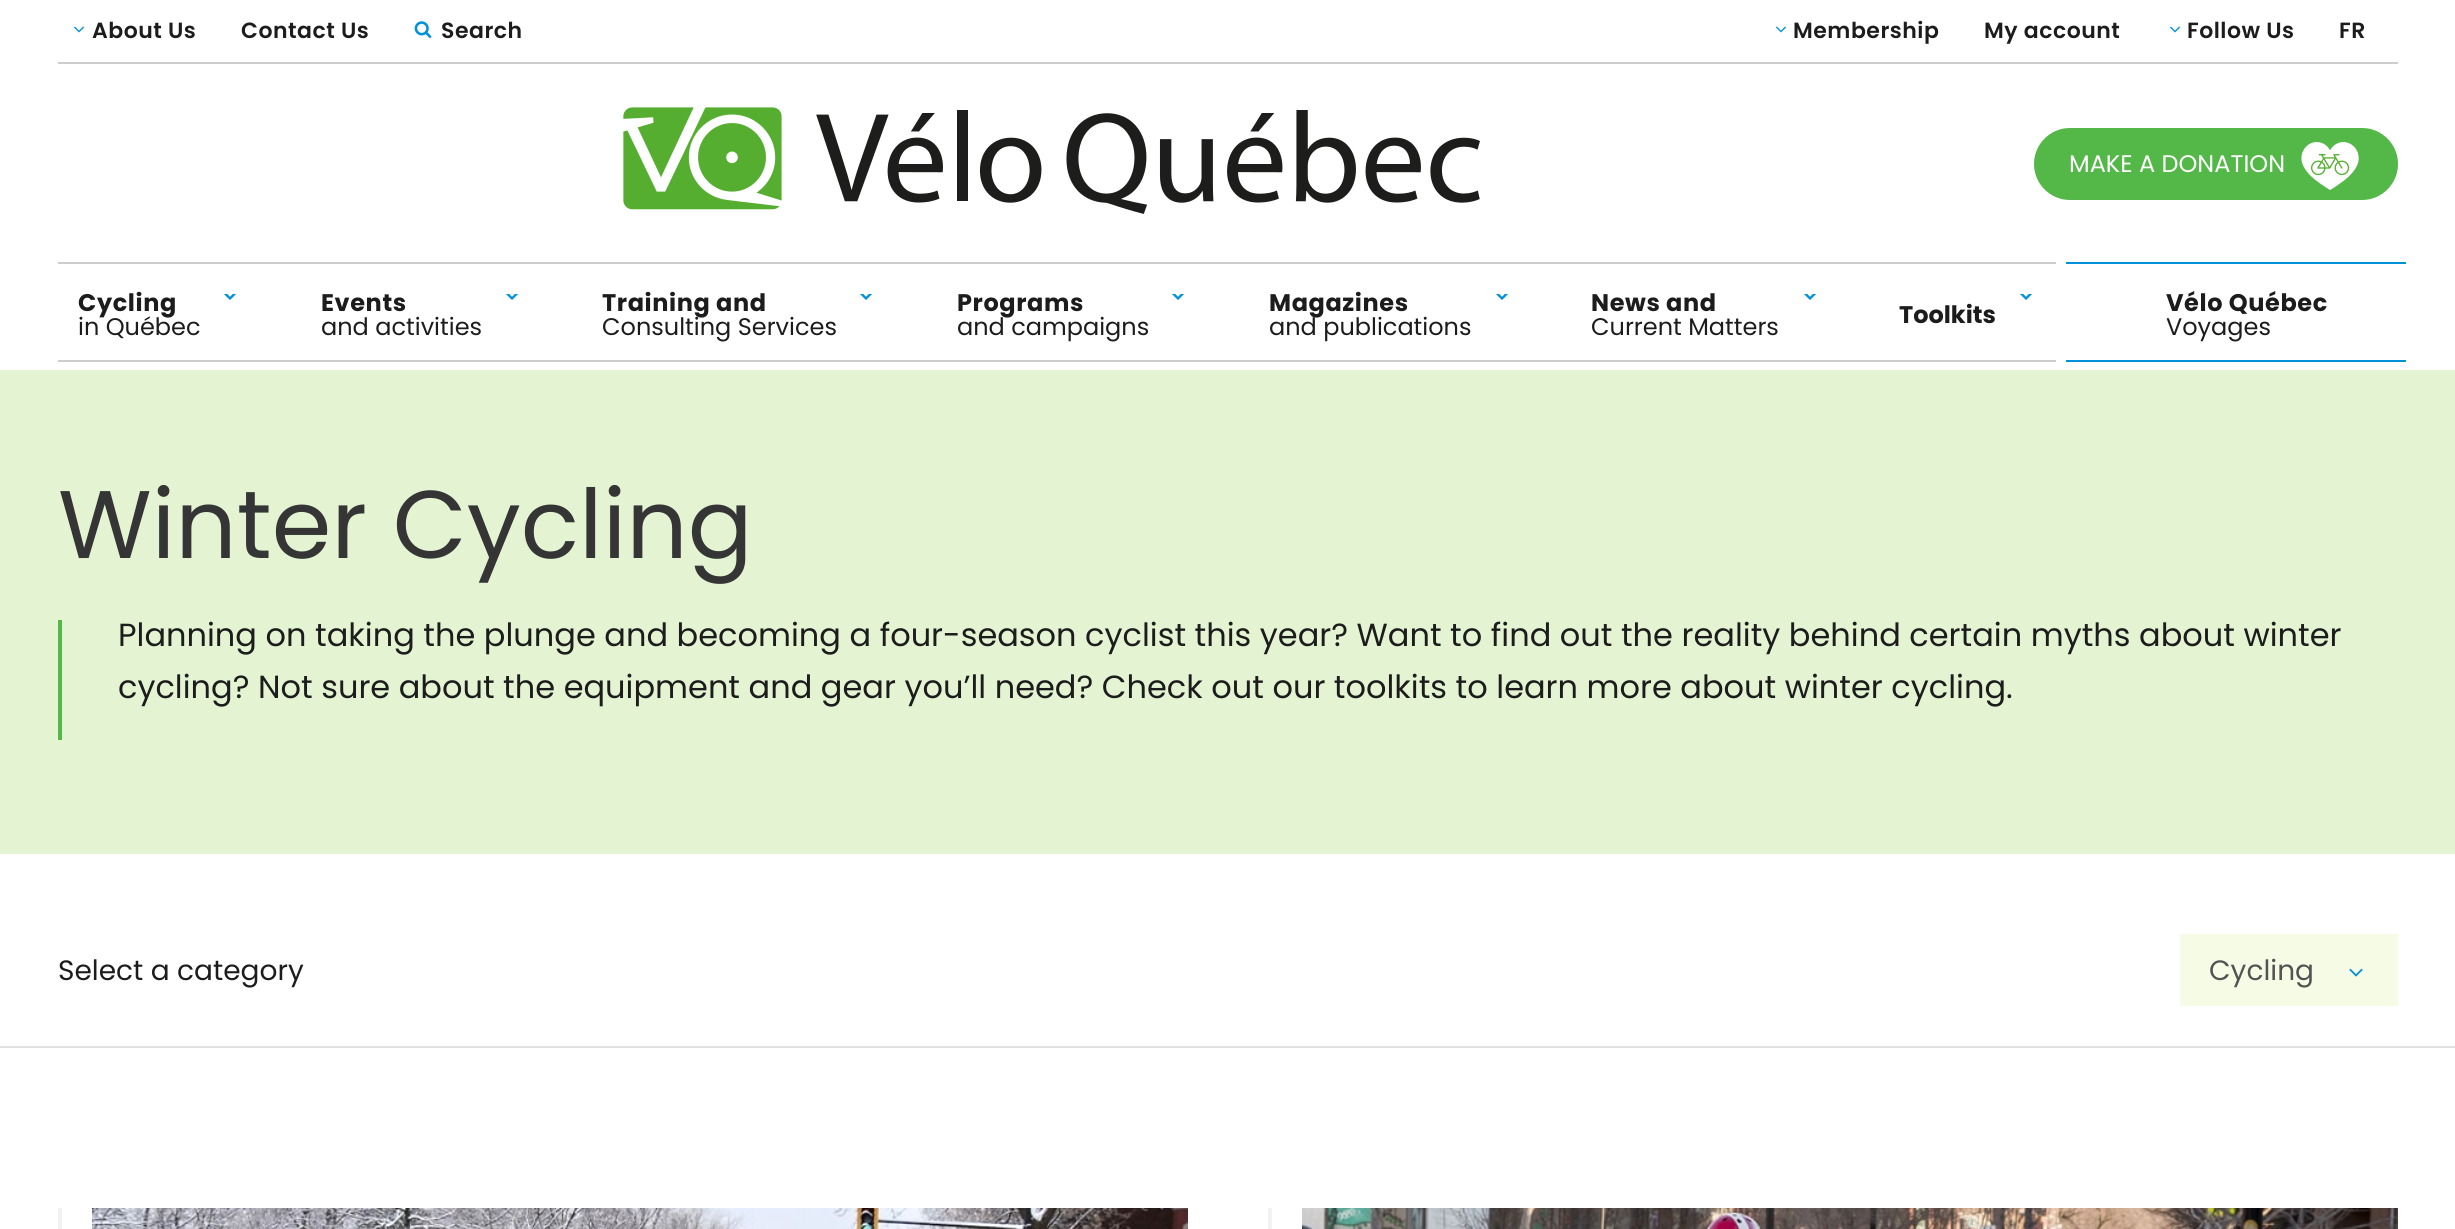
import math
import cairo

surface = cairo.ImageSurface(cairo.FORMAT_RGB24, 2455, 1229)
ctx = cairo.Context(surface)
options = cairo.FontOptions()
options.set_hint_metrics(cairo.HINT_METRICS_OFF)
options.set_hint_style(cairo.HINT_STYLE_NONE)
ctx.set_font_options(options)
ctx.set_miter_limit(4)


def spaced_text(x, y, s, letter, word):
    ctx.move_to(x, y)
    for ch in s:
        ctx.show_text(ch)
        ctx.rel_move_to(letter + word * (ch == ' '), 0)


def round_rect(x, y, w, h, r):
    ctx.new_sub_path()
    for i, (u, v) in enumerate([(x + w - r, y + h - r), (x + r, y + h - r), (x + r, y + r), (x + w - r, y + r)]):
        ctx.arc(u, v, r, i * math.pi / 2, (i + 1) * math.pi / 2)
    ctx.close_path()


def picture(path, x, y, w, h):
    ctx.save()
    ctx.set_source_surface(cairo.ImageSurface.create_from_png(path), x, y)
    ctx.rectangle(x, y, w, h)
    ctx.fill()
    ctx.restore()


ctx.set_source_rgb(1, 1, 1)
ctx.paint()
ctx.set_source_rgb(0.8, 0.8, 0.8)
ctx.rectangle(58, 62, 2340, 2)
ctx.fill()
picture("img1.png", 74, 26, 10, 7)
ctx.select_font_face("Poppins SemiBold")
ctx.set_font_size(22)
ctx.set_source_rgb(0.11, 0.11, 0.11)
spaced_text(92, 38, "About Us", 0.5, 0)
spaced_text(241, 38, "Contact Us", 0.5, 0)
picture("img2.png", 414, 21, 18, 17)
spaced_text(441, 38, "Search", 0.5, 0)
picture("img1.png", 1776, 26, 10, 7)
spaced_text(1793, 38, "Membership", 0.5, 0)
spaced_text(1984, 38, "My account", 0.5, 0)
picture("img1.png", 2170, 26, 10, 7)
spaced_text(2187, 38, "Follow Us", 0.5, 0)
spaced_text(2339, 38, "FR", 0.5, 0)
picture("img3.png", 623, 107, 857, 107)
ctx.set_source_rgb(0.329, 0.722, 0.282)
round_rect(2034, 128, 364, 72, 36)
ctx.fill()
ctx.select_font_face("Poppins")
ctx.set_font_size(24)
ctx.set_source_rgb(1, 1, 1)
ctx.move_to(2069, 172)
ctx.show_text("MAKE A DONATION")
picture("img4.png", 2301, 142, 58, 48)
ctx.set_source_rgb(0.8, 0.8, 0.8)
ctx.rectangle(58, 262, 1998, 2)
ctx.fill()
ctx.rectangle(58, 360, 1998, 2)
ctx.fill()
ctx.select_font_face("Poppins", cairo.FONT_SLANT_NORMAL, cairo.FONT_WEIGHT_BOLD)
ctx.set_source_rgb(0.11, 0.11, 0.11)
spaced_text(78, 311, "Cycling", 0.6, 0)
picture("img5.png", 224, 294, 12, 6)
ctx.select_font_face("Poppins")
ctx.move_to(78, 335)
ctx.show_text("in Québec")
ctx.select_font_face("Poppins", cairo.FONT_SLANT_NORMAL, cairo.FONT_WEIGHT_BOLD)
spaced_text(321, 311, "Events", 0.6, 0)
picture("img5.png", 506, 294, 12, 6)
ctx.select_font_face("Poppins")
ctx.move_to(321, 335)
ctx.show_text("and activities")
ctx.select_font_face("Poppins", cairo.FONT_SLANT_NORMAL, cairo.FONT_WEIGHT_BOLD)
spaced_text(602, 311, "Training and", 0.6, 0)
picture("img5.png", 860, 294, 12, 6)
ctx.select_font_face("Poppins")
ctx.move_to(602, 335)
ctx.show_text("Consulting Services")
ctx.select_font_face("Poppins", cairo.FONT_SLANT_NORMAL, cairo.FONT_WEIGHT_BOLD)
spaced_text(957, 311, "Programs", 0.6, 0)
picture("img5.png", 1172, 294, 12, 6)
ctx.select_font_face("Poppins")
ctx.move_to(957, 335)
ctx.show_text("and campaigns")
ctx.select_font_face("Poppins", cairo.FONT_SLANT_NORMAL, cairo.FONT_WEIGHT_BOLD)
spaced_text(1269, 311, "Magazines", 0.6, 0)
picture("img5.png", 1496, 294, 12, 6)
ctx.select_font_face("Poppins")
ctx.move_to(1269, 335)
ctx.show_text("and publications")
ctx.select_font_face("Poppins", cairo.FONT_SLANT_NORMAL, cairo.FONT_WEIGHT_BOLD)
spaced_text(1591, 311, "News and", 0.6, 0)
picture("img5.png", 1804, 294, 12, 6)
ctx.select_font_face("Poppins")
ctx.move_to(1591, 335)
ctx.show_text("Current Matters")
picture("img5.png", 2020, 294, 12, 6)
ctx.select_font_face("Poppins", cairo.FONT_SLANT_NORMAL, cairo.FONT_WEIGHT_BOLD)
ctx.move_to(1899, 323)
ctx.show_text("Toolkits")
ctx.set_source_rgb(0, 0.569, 0.855)
ctx.rectangle(2066, 262, 340, 2)
ctx.fill()
ctx.rectangle(2066, 360, 340, 2)
ctx.fill()
ctx.set_source_rgb(0.11, 0.11, 0.11)
spaced_text(2166, 311, "Vélo Québec", 0.6, 0)
ctx.select_font_face("Poppins")
ctx.move_to(2166, 335)
ctx.show_text("Voyages")
ctx.set_source_rgb(0.894, 0.957, 0.827)
ctx.rectangle(0, 370, 2455, 484)
ctx.fill()
ctx.set_font_size(96)
ctx.set_source_rgb(0.208, 0.208, 0.208)
ctx.move_to(58, 558)
ctx.show_text("Winter Cycling")
ctx.set_source_rgb(0.329, 0.722, 0.282)
ctx.rectangle(58, 620, 4, 120)
ctx.fill()
ctx.set_font_size(32)
ctx.set_source_rgb(0.11, 0.11, 0.11)
ctx.move_to(118, 646)
ctx.show_text("Planning on taking the plunge and becoming a four-season cyclist this year? Want to find out the reality behind certain myths about winter")
ctx.move_to(118, 698)
ctx.show_text("cycling? Not sure about the equipment and gear you’ll need? Check out our toolkits to learn more about winter cycling.")
ctx.set_source_rgb(0.882, 0.882, 0.882)
ctx.rectangle(0, 1046, 2455, 2)
ctx.fill()
ctx.set_font_size(28)
ctx.set_source_rgb(0.11, 0.11, 0.11)
ctx.move_to(58, 980)
ctx.show_text("Select a category")
ctx.set_source_rgb(0.961, 0.984, 0.902)
ctx.rectangle(2180, 934, 218, 72)
ctx.fill()
ctx.set_source_rgb(0.325, 0.325, 0.325)
ctx.move_to(2209, 980)
ctx.show_text("Cycling")
picture("img6.png", 2349, 968, 14, 9)
ctx.set_source_rgb(0.949, 0.949, 0.949)
ctx.rectangle(58, 1208, 4, 21)
ctx.fill()
picture("img7.png", 92, 1208, 1096, 21)
ctx.rectangle(1268, 1208, 4, 21)
ctx.fill()
picture("img8.png", 1302, 1208, 1096, 21)
surface.write_to_png("page.png")
